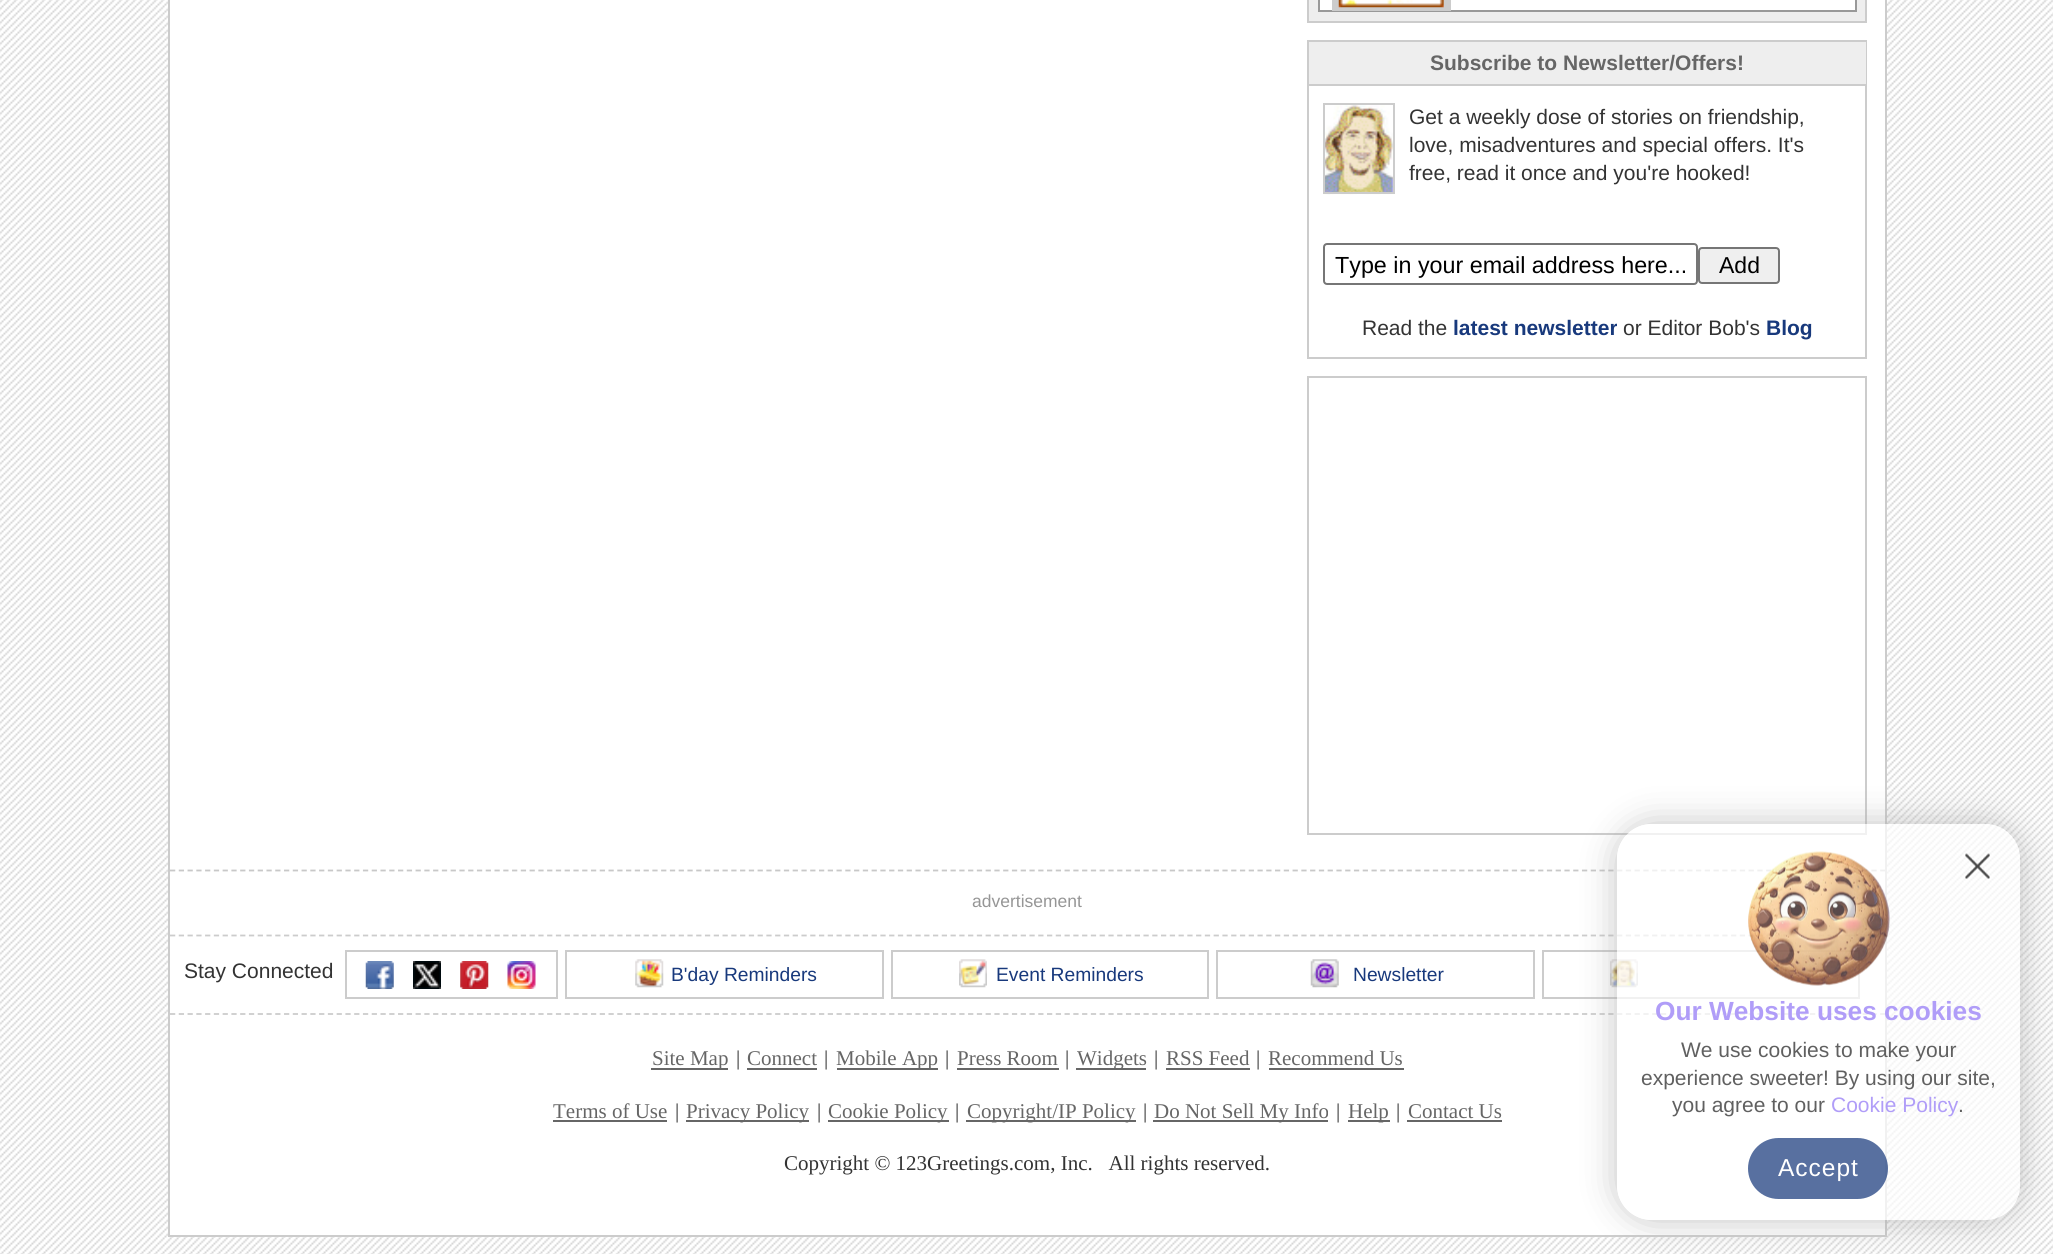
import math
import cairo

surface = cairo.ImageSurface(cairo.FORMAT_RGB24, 2053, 1254)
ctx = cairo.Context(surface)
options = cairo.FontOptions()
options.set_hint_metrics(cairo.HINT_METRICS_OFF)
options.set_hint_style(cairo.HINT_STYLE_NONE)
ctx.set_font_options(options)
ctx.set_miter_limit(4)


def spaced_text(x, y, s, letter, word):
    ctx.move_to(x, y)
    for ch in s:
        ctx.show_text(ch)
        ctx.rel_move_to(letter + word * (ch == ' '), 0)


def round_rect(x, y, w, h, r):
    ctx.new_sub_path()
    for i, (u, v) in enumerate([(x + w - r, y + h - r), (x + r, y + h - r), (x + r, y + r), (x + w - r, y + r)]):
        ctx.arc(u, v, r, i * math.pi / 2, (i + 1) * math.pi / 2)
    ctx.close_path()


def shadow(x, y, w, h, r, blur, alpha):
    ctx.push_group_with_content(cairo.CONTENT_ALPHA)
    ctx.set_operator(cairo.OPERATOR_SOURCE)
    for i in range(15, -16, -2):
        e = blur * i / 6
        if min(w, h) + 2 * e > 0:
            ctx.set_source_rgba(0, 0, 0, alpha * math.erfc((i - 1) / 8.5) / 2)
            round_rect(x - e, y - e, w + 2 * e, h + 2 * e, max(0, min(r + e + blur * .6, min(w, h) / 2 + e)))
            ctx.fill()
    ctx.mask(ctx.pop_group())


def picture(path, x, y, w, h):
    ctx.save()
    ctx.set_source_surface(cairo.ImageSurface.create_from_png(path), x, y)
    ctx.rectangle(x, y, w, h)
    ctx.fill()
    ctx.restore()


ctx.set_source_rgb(1, 1, 1)
ctx.paint()
picture("img1.png", 0, 0, 2053, 1254)
ctx.set_source_rgb(1, 1, 1)
ctx.rectangle(169, -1, 1717, 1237)
ctx.fill_preserve()
ctx.set_source_rgb(0.8, 0.8, 0.8)
ctx.stroke()
ctx.set_source_rgb(0.933, 0.933, 0.933)
ctx.rectangle(1308, -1, 558, 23)
ctx.fill_preserve()
ctx.set_source_rgb(0.8, 0.8, 0.8)
ctx.stroke()
ctx.set_source_rgb(1, 1, 1)
ctx.rectangle(1319, -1, 537, 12)
ctx.fill_preserve()
ctx.set_source_rgb(0.6, 0.6, 0.6)
ctx.stroke()
ctx.save()
ctx.rectangle(1320, 0, 535, 11)
ctx.clip()
ctx.rectangle(1335.5, -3.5, 112, 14)
ctx.set_source_rgb(0.8, 0.8, 0.8)
ctx.set_line_width(7)
ctx.stroke()
ctx.restore()
picture("img2.png", 1338, 0, 106, 8)
ctx.rectangle(1308, 41, 558, 317)
ctx.set_source_rgb(0.8, 0.8, 0.8)
ctx.stroke()
ctx.set_source_rgb(0.933, 0.933, 0.933)
ctx.rectangle(1309, 42, 557, 42)
ctx.fill()
ctx.set_source_rgb(0.8, 0.8, 0.8)
ctx.rectangle(1309, 84, 557, 2)
ctx.fill()
ctx.select_font_face("Liberation Sans", cairo.FONT_SLANT_NORMAL, cairo.FONT_WEIGHT_BOLD)
ctx.set_font_size(21)
ctx.set_source_rgb(0.4, 0.4, 0.4)
ctx.move_to(1430, 70)
ctx.show_text("Subscribe to Newsletter/Offers!")
picture("img3.png", 1323, 105, 72, 90)
ctx.rectangle(1324, 104, 70, 89)
ctx.set_source_rgb(0.8, 0.8, 0.8)
ctx.stroke()
ctx.select_font_face("Liberation Sans")
ctx.set_source_rgb(0.2, 0.2, 0.2)
ctx.move_to(1409, 124)
ctx.show_text("Get a weekly dose of stories on friendship,")
ctx.move_to(1409, 152)
ctx.show_text("love, misadventures and special offers. It's")
ctx.move_to(1409, 180)
ctx.show_text("free, read it once and you're hooked!")
round_rect(1324, 244, 373, 40, 3)
ctx.set_source_rgb(0.463, 0.463, 0.463)
ctx.stroke()
ctx.save()
ctx.rectangle(1335, 252, 350, 26)
ctx.clip()
ctx.set_font_size(23.3)
ctx.set_source_rgb(0, 0, 0)
ctx.move_to(1335, 273)
ctx.show_text("Type in your email address here...")
ctx.restore()
ctx.set_source_rgb(0.937, 0.937, 0.937)
round_rect(1699, 248, 80, 35, 3)
ctx.fill_preserve()
ctx.set_source_rgb(0.463, 0.463, 0.463)
ctx.stroke()
ctx.set_font_size(23)
ctx.set_source_rgb(0, 0, 0)
ctx.move_to(1719, 273)
ctx.show_text("Add")
ctx.set_font_size(21)
ctx.set_source_rgb(0.2, 0.2, 0.2)
ctx.move_to(1362, 335)
ctx.show_text("Read the")
ctx.select_font_face("Liberation Sans", cairo.FONT_SLANT_NORMAL, cairo.FONT_WEIGHT_BOLD)
ctx.set_source_rgb(0.094, 0.224, 0.486)
ctx.move_to(1453, 335)
ctx.show_text("latest newsletter")
ctx.select_font_face("Liberation Sans")
ctx.set_source_rgb(0.2, 0.2, 0.2)
ctx.move_to(1623, 335)
ctx.show_text("or Editor Bob's")
ctx.select_font_face("Liberation Sans", cairo.FONT_SLANT_NORMAL, cairo.FONT_WEIGHT_BOLD)
ctx.set_source_rgb(0.094, 0.224, 0.486)
ctx.move_to(1766, 335)
ctx.show_text("Blog")
ctx.rectangle(1308, 377, 558, 457)
ctx.set_source_rgb(0.8, 0.8, 0.8)
ctx.stroke()
ctx.new_path()
ctx.move_to(170, 870.5)
ctx.line_to(1885, 870.5)
ctx.set_source_rgb(0.784, 0.784, 0.784)
ctx.set_line_width(1.8)
ctx.set_dash([5.25, 3.52])
ctx.stroke()
ctx.select_font_face("Liberation Sans")
ctx.set_font_size(17.5)
ctx.set_source_rgb(0.588, 0.588, 0.588)
ctx.move_to(972, 907)
ctx.show_text("advertisement")
ctx.new_path()
ctx.move_to(170, 935.5)
ctx.line_to(1885, 935.5)
ctx.set_source_rgb(0.8, 0.8, 0.8)
ctx.stroke()
ctx.set_font_size(21)
ctx.set_source_rgb(0.2, 0.2, 0.2)
ctx.move_to(184, 978)
ctx.show_text("Stay Connected")
ctx.rectangle(346, 951, 211, 47)
ctx.set_source_rgb(0.8, 0.8, 0.8)
ctx.set_line_width(2)
ctx.set_dash([])
ctx.stroke()
picture("img4.png", 365, 961, 29, 28)
picture("img5.png", 413, 961, 28, 28)
picture("img6.png", 460, 961, 29, 28)
picture("img7.png", 507, 961, 29, 28)
ctx.rectangle(566, 951, 317, 47)
ctx.stroke()
picture("img8.png", 635, 959, 29, 29)
ctx.set_font_size(19.25)
ctx.set_source_rgb(0.094, 0.224, 0.486)
ctx.move_to(671, 981)
ctx.show_text("B'day Reminders")
ctx.rectangle(892, 951, 316, 47)
ctx.set_source_rgb(0.8, 0.8, 0.8)
ctx.stroke()
picture("img9.png", 959, 959, 28, 29)
ctx.set_source_rgb(0.094, 0.224, 0.486)
ctx.move_to(996, 981)
ctx.show_text("Event Reminders")
ctx.rectangle(1217, 951, 317, 47)
ctx.set_source_rgb(0.8, 0.8, 0.8)
ctx.stroke()
picture("img10.png", 1310, 959, 29, 29)
ctx.set_source_rgb(0.094, 0.224, 0.486)
ctx.move_to(1353, 981)
ctx.show_text("Newsletter")
ctx.rectangle(1543, 951, 316, 47)
ctx.set_source_rgb(0.8, 0.8, 0.8)
ctx.stroke()
picture("img11.png", 1610, 959, 28, 29)
ctx.new_path()
ctx.move_to(170, 1014)
ctx.line_to(1885, 1014)
ctx.set_line_width(1.8)
ctx.set_dash([5.25, 3.52])
ctx.stroke()
ctx.set_source_rgb(0.4, 0.4, 0.4)
ctx.rectangle(651, 1068, 77, 2)
ctx.fill()
ctx.select_font_face("Liberation Serif")
ctx.set_font_size(21)
ctx.move_to(652, 1065)
ctx.show_text("Site Map")
ctx.set_source_rgb(0.2, 0.2, 0.2)
ctx.move_to(736, 1065)
ctx.show_text("|")
ctx.set_source_rgb(0.4, 0.4, 0.4)
ctx.move_to(747, 1065)
ctx.show_text("Connect")
ctx.rectangle(747, 1068, 70, 2)
ctx.fill()
ctx.set_source_rgb(0.2, 0.2, 0.2)
ctx.move_to(824, 1065)
ctx.show_text("|")
ctx.set_source_rgb(0.4, 0.4, 0.4)
ctx.rectangle(837, 1068, 101, 2)
ctx.fill()
ctx.move_to(836, 1065)
ctx.show_text("Mobile App")
ctx.set_source_rgb(0.2, 0.2, 0.2)
ctx.move_to(945, 1065)
ctx.show_text("|")
ctx.set_source_rgb(0.4, 0.4, 0.4)
ctx.move_to(957, 1065)
ctx.show_text("Press Room")
ctx.rectangle(957, 1068, 102, 2)
ctx.fill()
ctx.set_source_rgb(0.2, 0.2, 0.2)
ctx.move_to(1065, 1065)
ctx.show_text("|")
ctx.set_source_rgb(0.4, 0.4, 0.4)
ctx.rectangle(1076, 1068, 70, 2)
ctx.fill()
ctx.move_to(1077, 1065)
ctx.show_text("Widgets")
ctx.set_source_rgb(0.2, 0.2, 0.2)
ctx.move_to(1154, 1065)
ctx.show_text("|")
ctx.set_source_rgb(0.4, 0.4, 0.4)
ctx.move_to(1166, 1065)
ctx.show_text("RSS Feed")
ctx.rectangle(1166, 1068, 84, 2)
ctx.fill()
ctx.set_source_rgb(0.2, 0.2, 0.2)
ctx.move_to(1256, 1065)
ctx.show_text("|")
ctx.set_source_rgb(0.4, 0.4, 0.4)
ctx.move_to(1268, 1065)
ctx.show_text("Recommend Us")
ctx.rectangle(1269, 1068, 135, 2)
ctx.fill()
ctx.move_to(553, 1118)
ctx.show_text("Terms of Use")
ctx.rectangle(553, 1120, 114, 2)
ctx.fill()
ctx.set_source_rgb(0.2, 0.2, 0.2)
ctx.move_to(675, 1118)
ctx.show_text("|")
ctx.set_source_rgb(0.4, 0.4, 0.4)
ctx.rectangle(686, 1120, 123, 2)
ctx.fill()
ctx.move_to(686, 1118)
ctx.show_text("Privacy Policy")
ctx.set_source_rgb(0.2, 0.2, 0.2)
ctx.move_to(817, 1118)
ctx.show_text("|")
ctx.set_source_rgb(0.4, 0.4, 0.4)
ctx.rectangle(828, 1120, 121, 2)
ctx.fill()
ctx.move_to(828, 1118)
ctx.show_text("Cookie Policy")
ctx.set_source_rgb(0.2, 0.2, 0.2)
ctx.move_to(955, 1118)
ctx.show_text("|")
ctx.set_source_rgb(0.4, 0.4, 0.4)
ctx.rectangle(966, 1120, 170, 2)
ctx.fill()
ctx.move_to(967, 1118)
ctx.show_text("Copyright/IP Policy")
ctx.set_source_rgb(0.2, 0.2, 0.2)
ctx.move_to(1143, 1118)
ctx.show_text("|")
ctx.set_source_rgb(0.4, 0.4, 0.4)
ctx.rectangle(1153, 1120, 175, 2)
ctx.fill()
ctx.move_to(1154, 1118)
ctx.show_text("Do Not Sell My Info")
ctx.set_source_rgb(0.2, 0.2, 0.2)
ctx.move_to(1336, 1118)
ctx.show_text("|")
ctx.set_source_rgb(0.4, 0.4, 0.4)
ctx.rectangle(1348, 1120, 42, 2)
ctx.fill()
ctx.move_to(1348, 1118)
ctx.show_text("Help")
ctx.set_source_rgb(0.2, 0.2, 0.2)
ctx.move_to(1396, 1118)
ctx.show_text("|")
ctx.set_source_rgb(0.4, 0.4, 0.4)
ctx.move_to(1408, 1118)
ctx.show_text("Contact Us")
ctx.rectangle(1407, 1120, 95, 2)
ctx.fill()
ctx.set_source_rgb(0.2, 0.2, 0.2)
ctx.move_to(784, 1170)
ctx.show_text("Copyright © 123Greetings.com, Inc.   All rights reserved.")
ctx.save()
ctx.set_fill_rule(cairo.FILL_RULE_EVEN_ODD)
ctx.new_path()
ctx.move_to(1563, 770)
ctx.line_to(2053, 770)
ctx.line_to(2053, 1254)
ctx.line_to(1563, 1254)
ctx.close_path()
ctx.move_to(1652, 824)
ctx.line_to(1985, 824)
ctx.curve_to(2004.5, 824, 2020, 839.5, 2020, 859)
ctx.line_to(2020, 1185)
ctx.curve_to(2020, 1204.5, 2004.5, 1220, 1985, 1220)
ctx.line_to(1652, 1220)
ctx.curve_to(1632.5, 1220, 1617, 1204.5, 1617, 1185)
ctx.line_to(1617, 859)
ctx.curve_to(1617, 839.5, 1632.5, 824, 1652, 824)
ctx.close_path()
ctx.clip()
ctx.set_source_rgb(0.678, 0.678, 0.678)
shadow(1617, 824, 403, 396, 35, 17.5, 0.72)
ctx.restore()
ctx.set_source_rgba(1, 1, 1, 0.72)
round_rect(1617, 824, 403, 396, 35)
ctx.fill()
picture("img12.png", 1748, 851, 142, 135)
picture("img13.png", 1965, 853, 25, 26)
ctx.select_font_face("Liberation Sans", cairo.FONT_SLANT_NORMAL, cairo.FONT_WEIGHT_BOLD)
ctx.set_font_size(26.25)
ctx.set_source_rgb(0.69, 0.616, 0.969)
ctx.move_to(1655, 1020)
ctx.show_text("Our Website uses cookies")
ctx.select_font_face("Liberation Sans")
ctx.set_font_size(21)
ctx.set_source_rgb(0.376, 0.376, 0.376)
ctx.move_to(1681, 1057)
ctx.show_text("We use cookies to make your")
ctx.move_to(1641, 1085)
ctx.show_text("experience sweeter! By using our site,")
ctx.move_to(1672, 1112)
ctx.show_text("you agree to our")
ctx.set_source_rgb(0.69, 0.616, 0.969)
ctx.move_to(1831, 1112)
ctx.show_text("Cookie Policy")
ctx.set_source_rgb(0.376, 0.376, 0.376)
ctx.move_to(1958, 1112)
ctx.show_text(".")
ctx.set_source_rgba(0.094, 0.224, 0.486, 0.72)
round_rect(1748, 1138, 140, 61, 30.5)
ctx.fill()
ctx.set_font_size(24.5)
ctx.set_source_rgb(1, 1, 1)
spaced_text(1778, 1176, "Accept", 1, 0)
surface.write_to_png("page.png")
